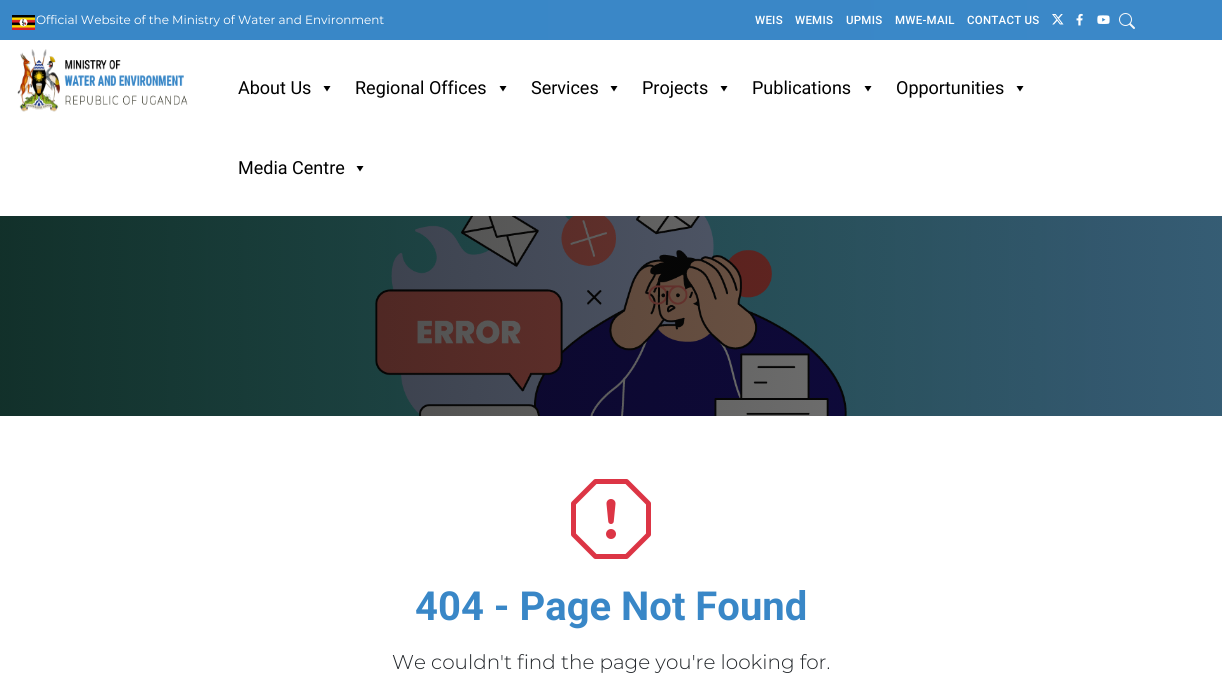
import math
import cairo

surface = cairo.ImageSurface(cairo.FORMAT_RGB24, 1222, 690)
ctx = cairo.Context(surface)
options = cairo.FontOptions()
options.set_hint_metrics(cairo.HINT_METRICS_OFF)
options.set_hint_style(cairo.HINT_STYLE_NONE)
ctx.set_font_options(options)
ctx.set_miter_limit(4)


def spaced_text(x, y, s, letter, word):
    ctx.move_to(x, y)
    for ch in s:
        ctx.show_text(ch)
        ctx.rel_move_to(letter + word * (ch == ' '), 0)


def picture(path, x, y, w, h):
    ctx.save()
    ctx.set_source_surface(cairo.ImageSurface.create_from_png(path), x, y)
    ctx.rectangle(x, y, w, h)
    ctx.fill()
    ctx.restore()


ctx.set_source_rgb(1, 1, 1)
ctx.paint()
gradient = cairo.LinearGradient(0, 20, 1222, 20)
gradient.add_color_stop_rgba(0.3, 0.224, 0.529, 0.78, 1)
gradient.add_color_stop_rgba(1, 0.231, 0.533, 0.784, 1)
ctx.set_source(gradient)
ctx.rectangle(0, 0, 1222, 40)
ctx.fill()
picture("img1.png", 12, 15, 23, 15)
ctx.select_font_face("Montserrat")
ctx.set_font_size(12)
ctx.set_source_rgb(1, 1, 1)
ctx.move_to(36, 24)
ctx.show_text("Official Website of the Ministry of Water and Environment")
ctx.select_font_face("Roboto Medium")
ctx.set_font_size(11.5)
spaced_text(755, 24, "WEIS", 0.25, 0)
spaced_text(795, 24, "WEMIS", 0.25, 0)
spaced_text(846, 24, "UPMIS", 0.25, 0)
spaced_text(895, 24, "MWE-MAIL", 0.25, 0)
spaced_text(967, 24, "CONTACT US", 0.25, 0)
picture("img2.png", 1052, 14, 12, 11)
picture("img3.png", 1076, 13, 7, 13)
picture("img4.png", 1097, 15, 13, 9)
picture("img5.png", 1119, 13, 16, 16)
picture("img6.png", 17, 49, 171, 63)
ctx.select_font_face("Roboto")
ctx.set_font_size(18)
ctx.set_source_rgb(0, 0, 0)
ctx.move_to(238, 94)
ctx.show_text("About Us")
ctx.new_path()
ctx.move_to(330.5, 86)
ctx.line_to(327, 91.5)
ctx.line_to(323.5, 86)
ctx.close_path()
ctx.fill()
ctx.move_to(355, 94)
ctx.show_text("Regional Offices")
ctx.new_path()
ctx.move_to(506.5, 86)
ctx.line_to(503, 91.5)
ctx.line_to(499.5, 86)
ctx.close_path()
ctx.fill()
ctx.move_to(531, 94)
ctx.show_text("Services")
ctx.new_path()
ctx.move_to(617.5, 86)
ctx.line_to(614, 91.5)
ctx.line_to(610.5, 86)
ctx.close_path()
ctx.fill()
ctx.move_to(642, 94)
ctx.show_text("Projects")
ctx.new_path()
ctx.move_to(727.5, 86)
ctx.line_to(724, 91.5)
ctx.line_to(720.5, 86)
ctx.close_path()
ctx.fill()
ctx.move_to(752, 94)
ctx.show_text("Publications")
ctx.new_path()
ctx.move_to(871.5, 86)
ctx.line_to(868, 91.5)
ctx.line_to(864.5, 86)
ctx.close_path()
ctx.fill()
ctx.move_to(896, 94)
ctx.show_text("Opportunities")
ctx.new_path()
ctx.move_to(1023.5, 86)
ctx.line_to(1020, 91.5)
ctx.line_to(1016.5, 86)
ctx.close_path()
ctx.fill()
ctx.move_to(238, 174)
ctx.show_text("Media Centre")
ctx.new_path()
ctx.move_to(363.5, 166)
ctx.line_to(360, 171.5)
ctx.line_to(356.5, 166)
ctx.close_path()
ctx.fill()
picture("img7.png", 0, 216, 1222, 200)
picture("img8.png", 571, 479, 80, 80)
ctx.select_font_face("Roboto", cairo.FONT_SLANT_NORMAL, cairo.FONT_WEIGHT_BOLD)
ctx.set_font_size(40)
ctx.set_source_rgb(0.224, 0.529, 0.78)
ctx.move_to(415, 620)
ctx.show_text("404 - Page Not Found")
ctx.select_font_face("Montserrat Light")
ctx.set_font_size(20)
ctx.set_source_rgb(0.129, 0.145, 0.161)
ctx.move_to(392, 669)
ctx.show_text("We couldn't find the page you're looking for.")
surface.write_to_png("page.png")
